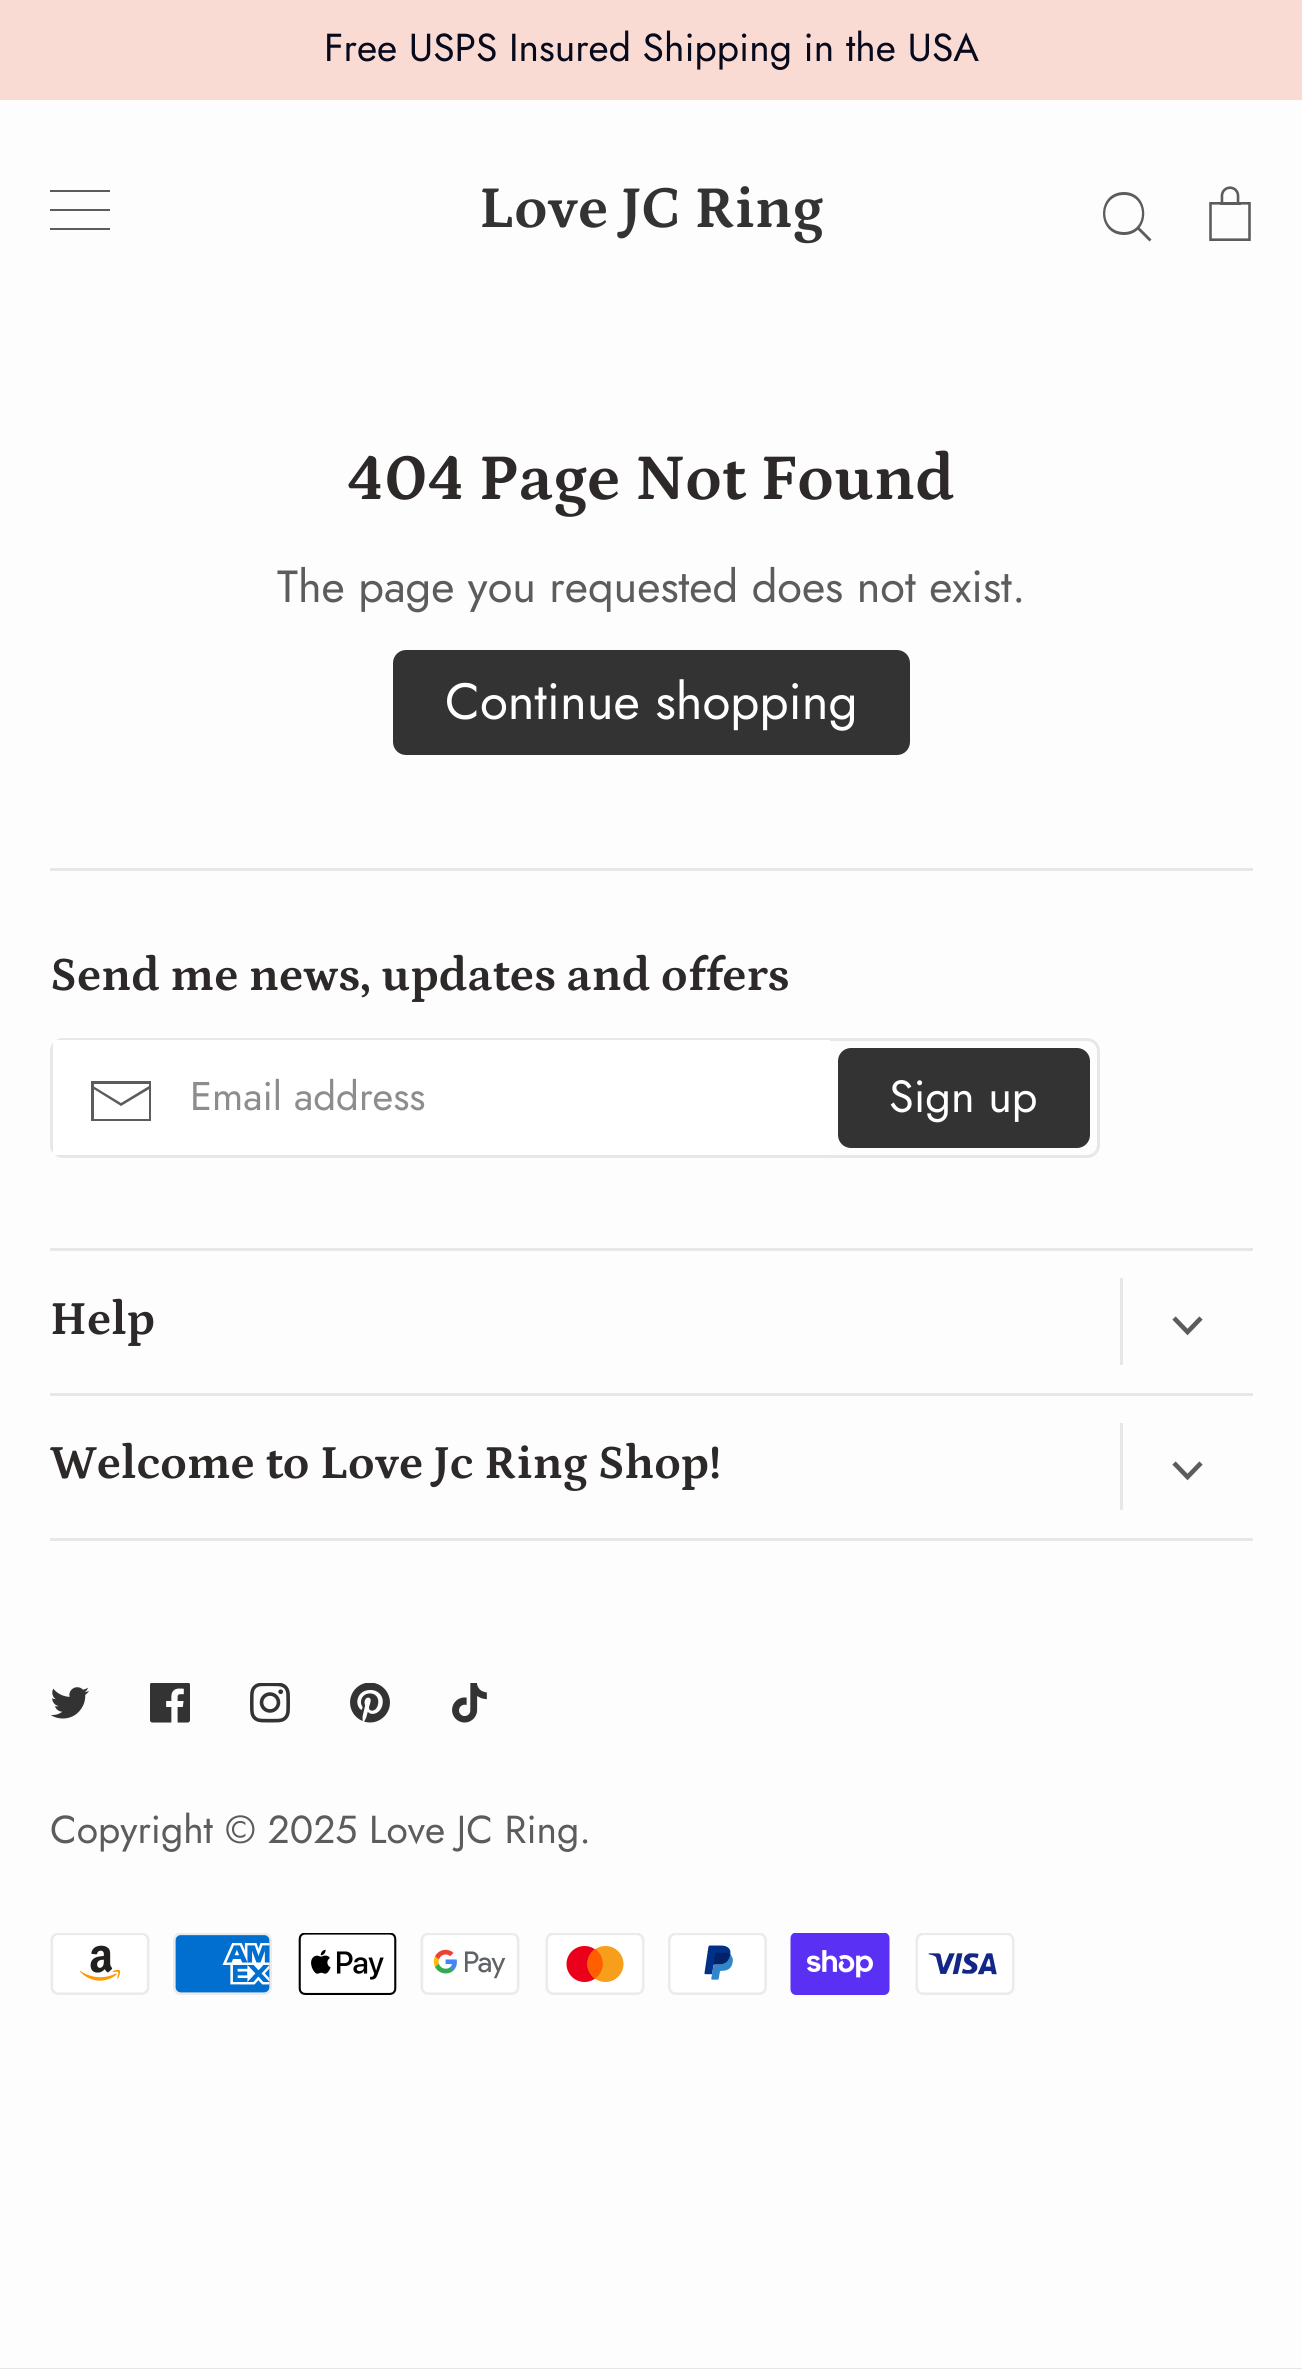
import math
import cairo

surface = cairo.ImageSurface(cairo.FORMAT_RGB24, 1302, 2369)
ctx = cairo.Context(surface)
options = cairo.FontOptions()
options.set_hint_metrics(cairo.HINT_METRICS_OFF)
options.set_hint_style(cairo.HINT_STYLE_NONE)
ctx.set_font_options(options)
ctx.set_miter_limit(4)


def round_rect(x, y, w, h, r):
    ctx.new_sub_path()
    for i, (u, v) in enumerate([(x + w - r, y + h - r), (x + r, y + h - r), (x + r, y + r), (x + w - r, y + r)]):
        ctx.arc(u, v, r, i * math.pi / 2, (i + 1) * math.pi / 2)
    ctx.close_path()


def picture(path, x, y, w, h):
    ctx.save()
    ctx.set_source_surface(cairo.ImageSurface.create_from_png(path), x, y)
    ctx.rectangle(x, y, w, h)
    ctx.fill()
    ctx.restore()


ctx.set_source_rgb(0.992, 0.992, 0.992)
ctx.paint()
ctx.set_source_rgb(0.973, 0.859, 0.827)
ctx.rectangle(0, 0, 1302, 100)
ctx.fill()
ctx.select_font_face("Jost")
ctx.set_font_size(39)
ctx.set_source_rgb(0.031, 0.039, 0.11)
ctx.move_to(324, 61)
ctx.show_text("Free USPS Insured Shipping in the USA")
ctx.set_source_rgb(0.361, 0.361, 0.361)
ctx.rectangle(50, 190, 60, 2)
ctx.fill()
ctx.rectangle(50, 209, 60, 2)
ctx.fill()
ctx.rectangle(50, 228, 60, 2)
ctx.fill()
ctx.select_font_face("Petrona", cairo.FONT_SLANT_NORMAL, cairo.FONT_WEIGHT_BOLD)
ctx.set_font_size(60)
ctx.set_source_rgb(0.2, 0.2, 0.2)
ctx.move_to(479, 227)
ctx.show_text("Love JC Ring")
ctx.set_source_rgb(0.361, 0.361, 0.361)
ctx.new_path()
ctx.move_to(1151.5, 239.5)
ctx.line_to(1149.5, 241.5)
ctx.line_to(1136.5, 228.5)
ctx.line_to(1138.5, 226.5)
ctx.close_path()
ctx.fill()
ctx.new_path()
ctx.move_to(1124, 235)
ctx.curve_to(1096, 235, 1096, 192, 1124, 192)
ctx.curve_to(1151, 192, 1151, 235, 1124, 235)
ctx.close_path()
ctx.move_to(1124, 232)
ctx.curve_to(1148, 232, 1148, 195, 1124, 195)
ctx.curve_to(1099, 195, 1099, 232, 1124, 232)
ctx.close_path()
ctx.fill()
picture("img1.png", 1209, 186, 42, 55)
ctx.set_source_rgb(0.898, 0.898, 0.898)
ctx.rectangle(0, 2368, 1302, 1)
ctx.fill()
ctx.set_font_size(66)
ctx.set_source_rgb(0.176, 0.161, 0.161)
ctx.move_to(348, 499)
ctx.show_text("404 Page Not Found")
ctx.select_font_face("Jost")
ctx.set_font_size(45)
ctx.set_source_rgb(0.361, 0.361, 0.361)
ctx.move_to(277, 602)
ctx.show_text("The page you requested does not exist.")
ctx.set_source_rgb(0.2, 0.2, 0.2)
round_rect(394.5, 651.5, 514, 102, 11.5)
ctx.fill_preserve()
ctx.set_line_width(3)
ctx.stroke()
ctx.set_font_size(51)
ctx.set_source_rgb(1, 1, 1)
ctx.move_to(445, 719)
ctx.show_text("Continue shopping")
ctx.set_source_rgb(0.906, 0.906, 0.906)
ctx.rectangle(50, 868, 1203, 3)
ctx.fill()
ctx.rectangle(50, 1248, 1203, 3)
ctx.fill()
ctx.select_font_face("Petrona", cairo.FONT_SLANT_NORMAL, cairo.FONT_WEIGHT_BOLD)
ctx.set_font_size(48)
ctx.set_source_rgb(0.176, 0.161, 0.161)
ctx.move_to(50, 990)
ctx.show_text("Send me news, updates and offers")
round_rect(51.5, 1039.5, 1047, 117, 11.5)
ctx.set_source_rgb(0.906, 0.906, 0.906)
ctx.stroke()
ctx.set_source_rgb(1, 1, 1)
ctx.rectangle(53, 1040, 777, 115)
ctx.fill()
ctx.set_source_rgb(0.361, 0.361, 0.361)
ctx.new_path()
ctx.move_to(91, 1081)
ctx.line_to(151, 1081)
ctx.line_to(151, 1121)
ctx.line_to(91, 1121)
ctx.close_path()
ctx.move_to(94, 1084)
ctx.line_to(94, 1119)
ctx.line_to(149, 1119)
ctx.line_to(149, 1084)
ctx.close_path()
ctx.fill()
ctx.new_path()
ctx.move_to(149, 1086)
ctx.line_to(151, 1088)
ctx.line_to(121, 1106)
ctx.line_to(92, 1088)
ctx.line_to(93, 1086)
ctx.line_to(121, 1103)
ctx.close_path()
ctx.fill()
ctx.select_font_face("Jost")
ctx.set_font_size(40)
ctx.set_source_rgb(0.553, 0.553, 0.553)
ctx.move_to(190, 1110)
ctx.show_text("Email address")
ctx.set_source_rgb(0.2, 0.2, 0.2)
round_rect(839.5, 1049.5, 249, 97, 11.5)
ctx.fill_preserve()
ctx.stroke()
ctx.set_font_size(45)
ctx.set_source_rgb(1, 1, 1)
ctx.move_to(889, 1112)
ctx.show_text("Sign up")
ctx.set_source_rgb(0.906, 0.906, 0.906)
ctx.rectangle(50, 1393, 1203, 3)
ctx.fill()
ctx.select_font_face("Petrona", cairo.FONT_SLANT_NORMAL, cairo.FONT_WEIGHT_BOLD)
ctx.set_font_size(48)
ctx.set_source_rgb(0.176, 0.161, 0.161)
ctx.move_to(50, 1334)
ctx.show_text("Help")
ctx.set_source_rgb(0.906, 0.906, 0.906)
ctx.rectangle(1120, 1278, 3, 87)
ctx.fill()
ctx.new_path()
ctx.move_to(1174, 1318)
ctx.line_to(1187.5, 1332)
ctx.line_to(1201, 1318)
ctx.set_source_rgb(0.361, 0.361, 0.361)
ctx.set_line_width(4.6)
ctx.stroke()
ctx.set_source_rgb(0.906, 0.906, 0.906)
ctx.rectangle(50, 1538, 1203, 3)
ctx.fill()
ctx.set_source_rgb(0.176, 0.161, 0.161)
ctx.move_to(50, 1478)
ctx.show_text("Welcome to Love Jc Ring Shop!")
ctx.set_source_rgb(0.906, 0.906, 0.906)
ctx.rectangle(1120, 1423, 3, 87)
ctx.fill()
ctx.new_path()
ctx.move_to(1174, 1463)
ctx.line_to(1187.5, 1477)
ctx.line_to(1201, 1463)
ctx.set_source_rgb(0.361, 0.361, 0.361)
ctx.stroke()
picture("img2.png", 50, 1687, 39, 32)
picture("img3.png", 150, 1683, 40, 40)
picture("img4.png", 250, 1683, 40, 40)
picture("img5.png", 350, 1683, 40, 40)
picture("img6.png", 452, 1683, 35, 40)
ctx.select_font_face("Jost")
ctx.set_font_size(39)
ctx.move_to(50, 1843)
ctx.show_text("Copyright © 2025")
ctx.move_to(369, 1843)
ctx.show_text("Love JC Ring.")
picture("img7.png", 50, 1933, 100, 62)
picture("img8.png", 173, 1933, 99, 62)
picture("img9.png", 298, 1933, 99, 62)
picture("img10.png", 420, 1933, 100, 62)
picture("img11.png", 545, 1933, 100, 62)
picture("img12.png", 668, 1933, 99, 62)
picture("img13.png", 790, 1933, 100, 62)
picture("img14.png", 915, 1933, 100, 62)
surface.write_to_png("page.png")
